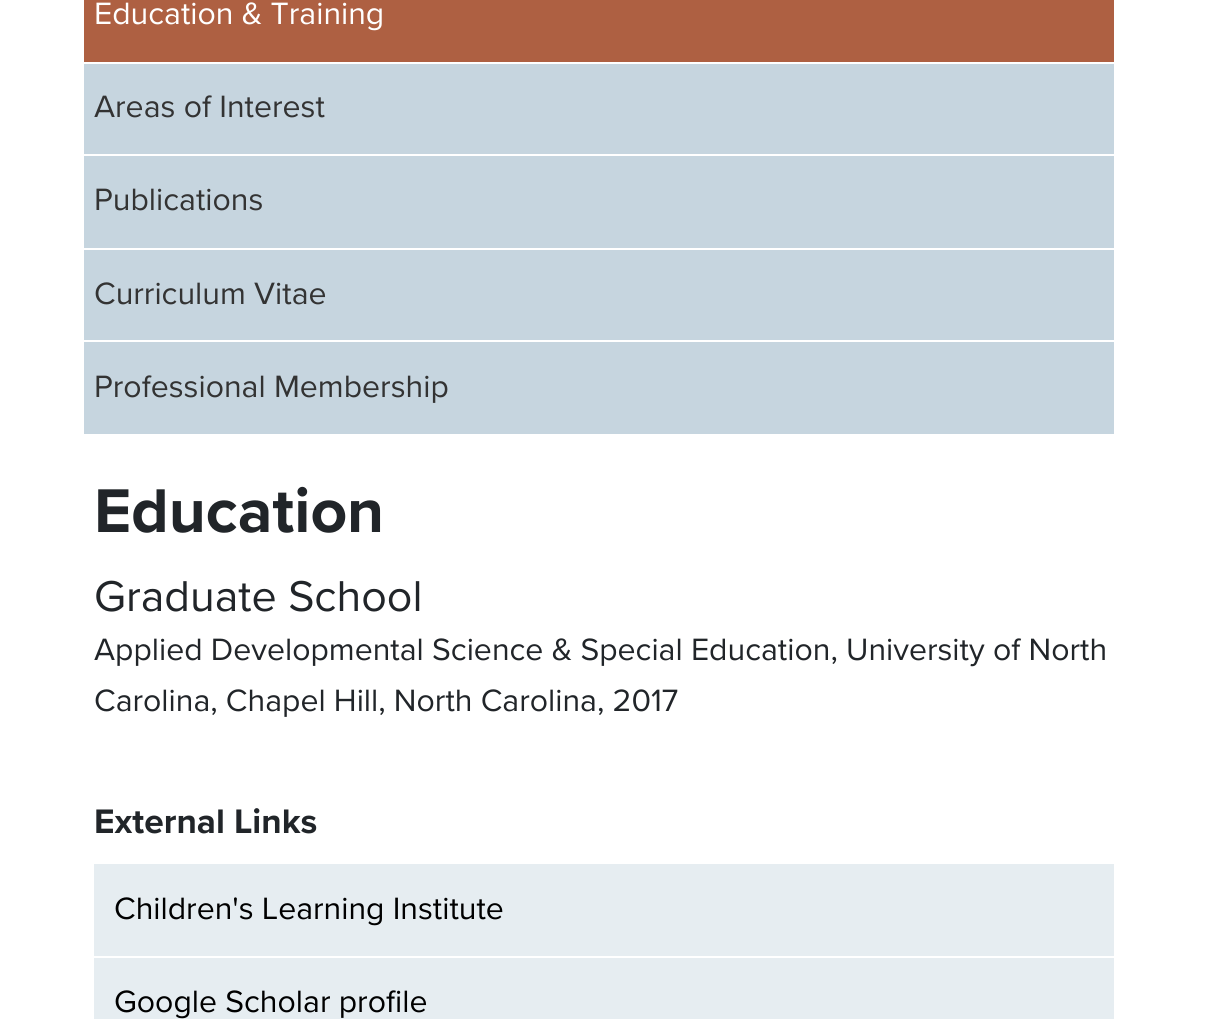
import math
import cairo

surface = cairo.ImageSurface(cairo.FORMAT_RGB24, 1207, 1019)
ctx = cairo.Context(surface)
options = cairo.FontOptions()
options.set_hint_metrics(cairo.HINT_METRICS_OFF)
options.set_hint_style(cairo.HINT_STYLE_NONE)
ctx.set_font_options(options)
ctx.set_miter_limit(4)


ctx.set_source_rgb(1, 1, 1)
ctx.paint()
ctx.set_source_rgb(0.682, 0.376, 0.259)
ctx.rectangle(84, 0, 1030, 62)
ctx.fill()
ctx.select_font_face("Proxima Nova")
ctx.set_font_size(32)
ctx.set_source_rgb(1, 1, 1)
ctx.move_to(94, 24)
ctx.show_text("Education & Training")
ctx.set_source_rgb(0.776, 0.835, 0.875)
ctx.rectangle(84, 64, 1030, 90)
ctx.fill()
ctx.set_source_rgb(0.2, 0.2, 0.2)
ctx.move_to(94, 117)
ctx.show_text("Areas of Interest")
ctx.set_source_rgb(0.776, 0.835, 0.875)
ctx.rectangle(84, 156, 1030, 92)
ctx.fill()
ctx.set_source_rgb(0.2, 0.2, 0.2)
ctx.move_to(94, 210)
ctx.show_text("Publications")
ctx.set_source_rgb(0.776, 0.835, 0.875)
ctx.rectangle(84, 250, 1030, 90)
ctx.fill()
ctx.set_source_rgb(0.2, 0.2, 0.2)
ctx.move_to(94, 304)
ctx.show_text("Curriculum Vitae")
ctx.set_source_rgb(0.776, 0.835, 0.875)
ctx.rectangle(84, 342, 1030, 92)
ctx.fill()
ctx.set_source_rgb(0.2, 0.2, 0.2)
ctx.move_to(94, 397)
ctx.show_text("Professional Membership")
ctx.select_font_face("Proxima Nova", cairo.FONT_SLANT_NORMAL, cairo.FONT_WEIGHT_BOLD)
ctx.set_font_size(64)
ctx.set_source_rgb(0.129, 0.145, 0.161)
ctx.move_to(94, 532)
ctx.show_text("Education")
ctx.select_font_face("Proxima Nova")
ctx.set_font_size(44.75)
ctx.move_to(94, 611)
ctx.show_text("Graduate School")
ctx.set_font_size(32)
ctx.move_to(94, 660)
ctx.show_text("Applied Developmental Science & Special Education, University of North")
ctx.move_to(94, 711)
ctx.show_text("Carolina, Chapel Hill, North Carolina, 2017")
ctx.select_font_face("Proxima Nova", cairo.FONT_SLANT_NORMAL, cairo.FONT_WEIGHT_BOLD)
ctx.set_font_size(35.25)
ctx.move_to(94, 833)
ctx.show_text("External Links")
ctx.set_source_rgb(0.902, 0.929, 0.945)
ctx.rectangle(94, 864, 1020, 92)
ctx.fill()
ctx.select_font_face("Proxima Nova")
ctx.set_font_size(32)
ctx.set_source_rgb(0, 0, 0)
ctx.move_to(114, 919)
ctx.show_text("Children's Learning Institute")
ctx.set_source_rgb(0.902, 0.929, 0.945)
ctx.rectangle(94, 958, 1020, 61)
ctx.fill()
ctx.set_source_rgb(0, 0, 0)
ctx.move_to(114, 1012)
ctx.show_text("Google Scholar profile")
surface.write_to_png("page.png")
